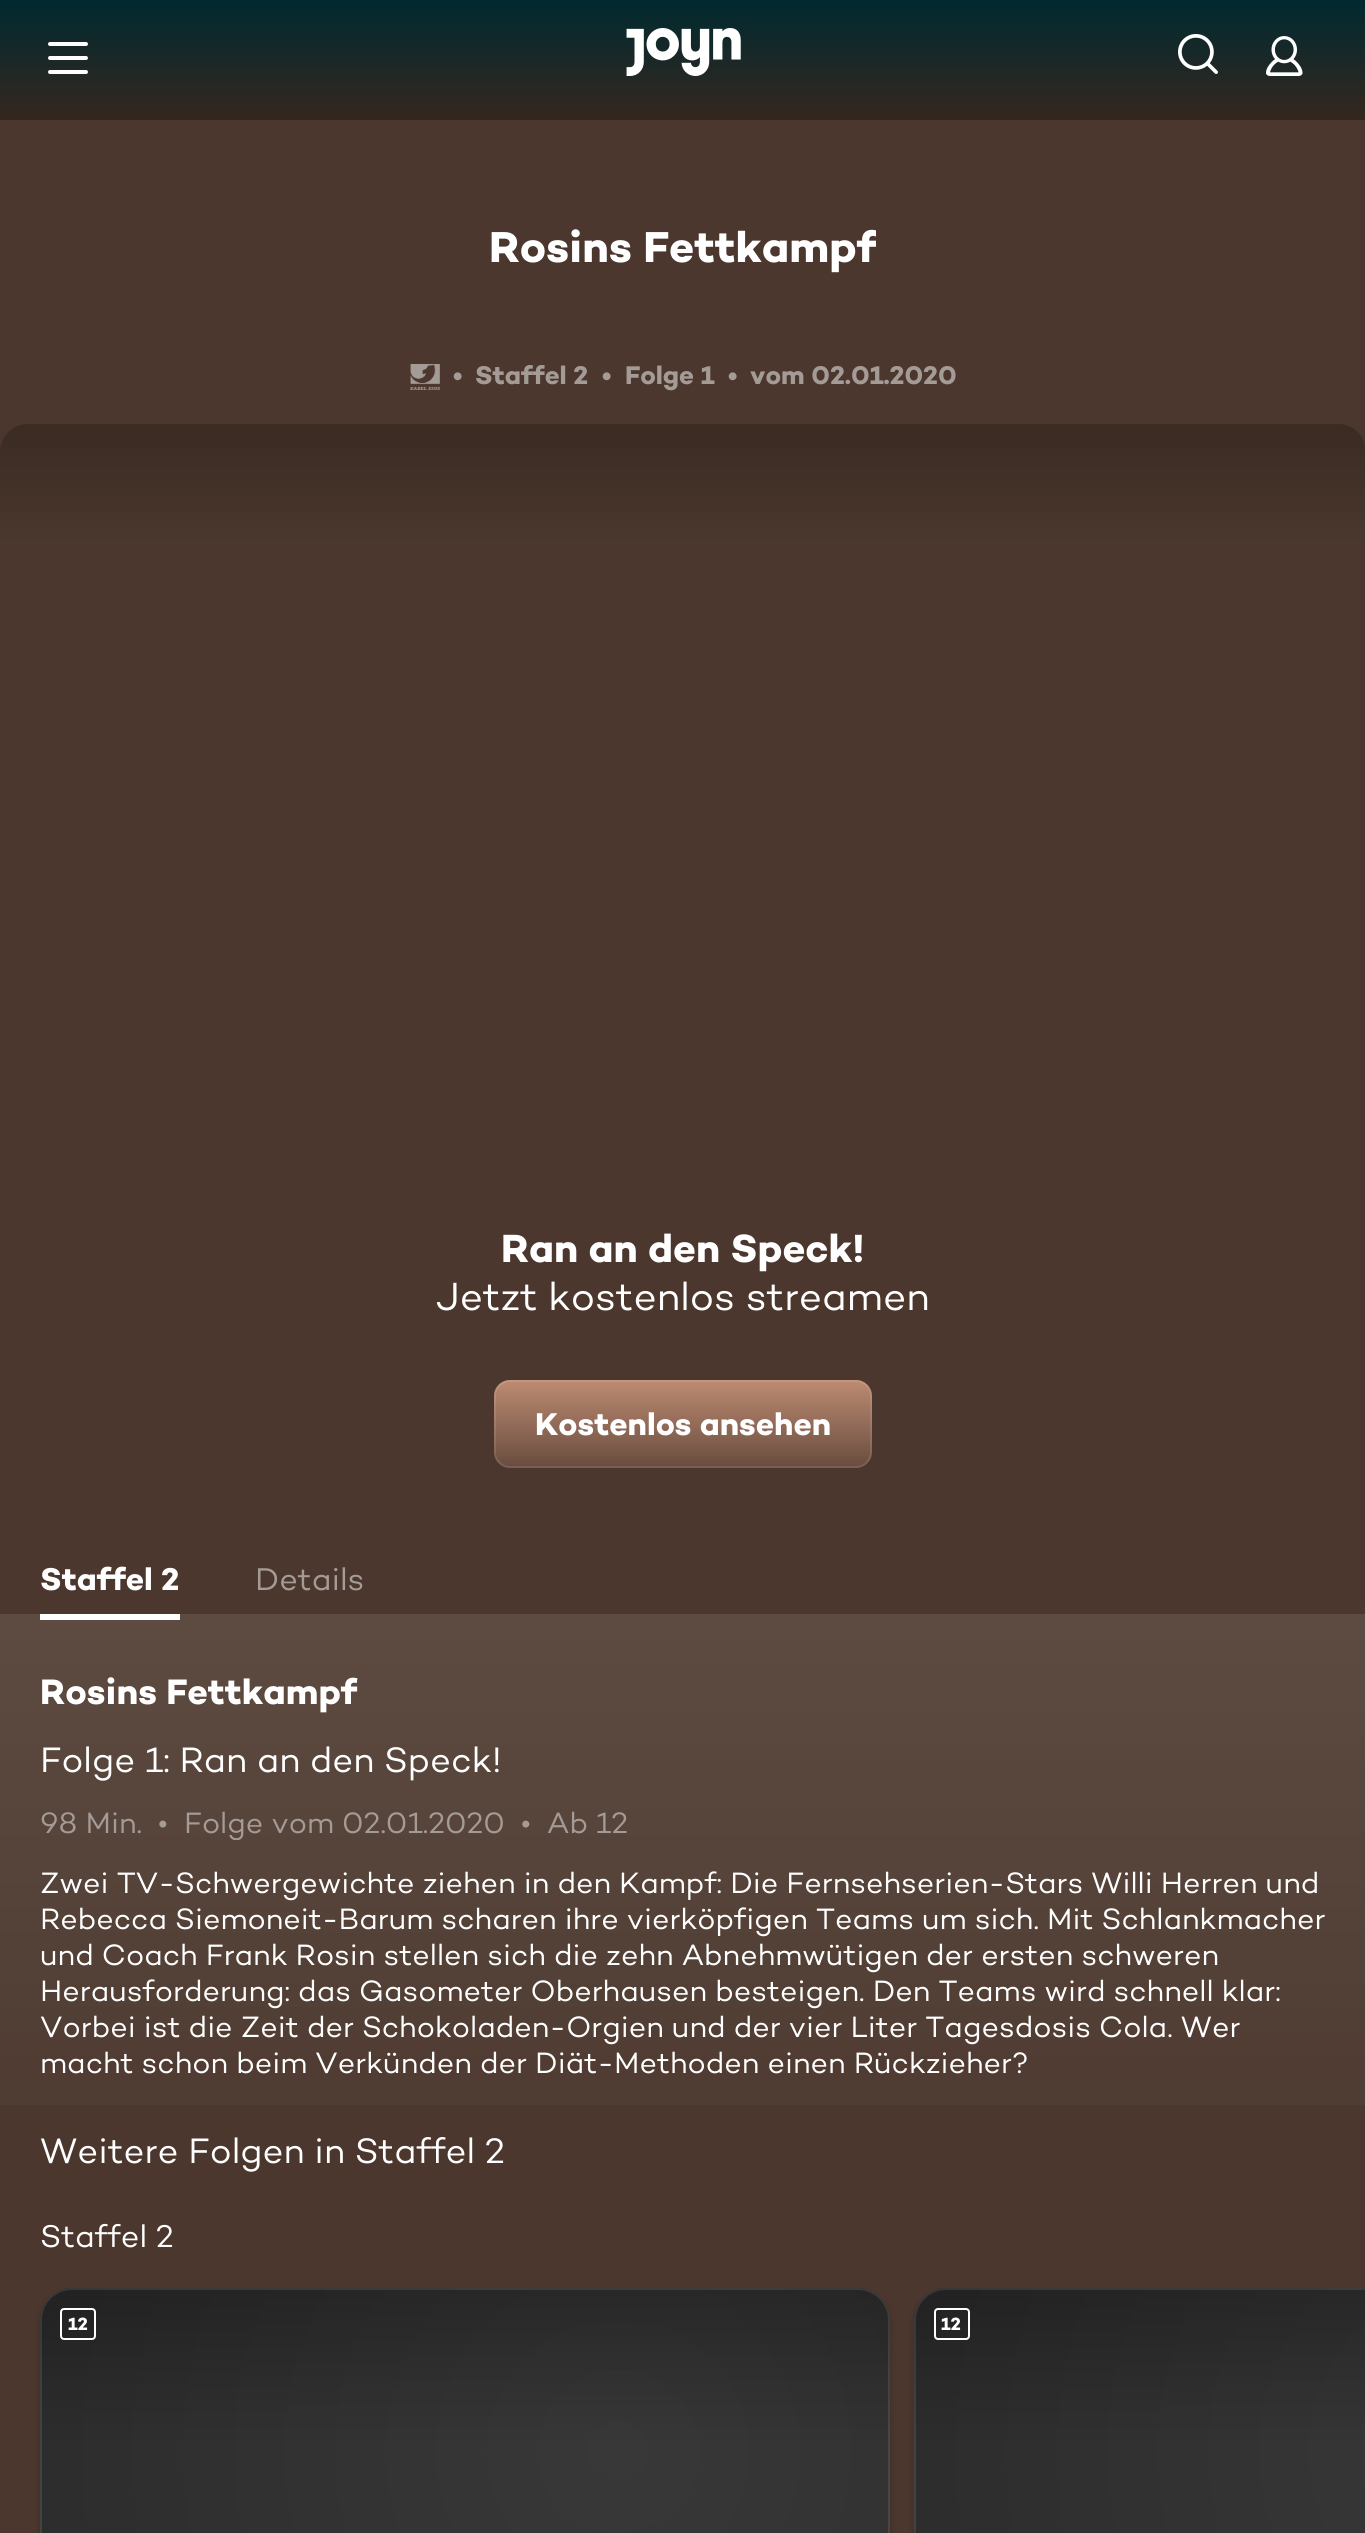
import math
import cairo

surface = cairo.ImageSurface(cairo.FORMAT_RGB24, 1365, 2533)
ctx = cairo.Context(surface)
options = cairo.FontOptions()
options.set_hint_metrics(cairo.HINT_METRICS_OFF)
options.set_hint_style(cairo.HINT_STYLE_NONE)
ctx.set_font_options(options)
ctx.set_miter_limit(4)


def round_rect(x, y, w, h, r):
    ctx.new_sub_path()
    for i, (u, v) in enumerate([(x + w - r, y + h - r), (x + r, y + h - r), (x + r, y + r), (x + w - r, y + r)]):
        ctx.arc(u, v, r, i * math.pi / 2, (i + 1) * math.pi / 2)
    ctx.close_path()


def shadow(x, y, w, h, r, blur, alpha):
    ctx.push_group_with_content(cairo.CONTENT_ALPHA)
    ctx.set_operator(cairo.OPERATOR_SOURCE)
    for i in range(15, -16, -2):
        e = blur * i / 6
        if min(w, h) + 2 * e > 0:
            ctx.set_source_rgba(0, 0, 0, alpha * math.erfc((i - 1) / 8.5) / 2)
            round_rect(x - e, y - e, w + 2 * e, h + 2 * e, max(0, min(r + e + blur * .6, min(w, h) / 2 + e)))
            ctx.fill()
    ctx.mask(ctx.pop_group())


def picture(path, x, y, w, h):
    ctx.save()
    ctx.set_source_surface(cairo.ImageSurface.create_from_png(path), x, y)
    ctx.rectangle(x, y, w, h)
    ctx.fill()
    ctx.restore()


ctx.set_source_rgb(0.294, 0.216, 0.176)
ctx.paint()
gradient = cairo.LinearGradient(683, 0, 683, 120)
gradient.add_color_stop_rgba(0, 0, 0.161, 0.184, 1)
gradient.add_color_stop_rgba(1, 0.208, 0.153, 0.122, 1)
ctx.set_source(gradient)
ctx.rectangle(0, 0, 1365, 120)
ctx.fill()
picture("img1.png", 48, 42, 40, 32)
picture("img2.png", 626, 28, 115, 48)
picture("img3.png", 1178, 34, 40, 40)
picture("img4.png", 1266, 36, 37, 40)
ctx.save()
ctx.rectangle(490, 220, 386, 108)
ctx.clip()
ctx.select_font_face("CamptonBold", cairo.FONT_SLANT_NORMAL, cairo.FONT_WEIGHT_BOLD)
ctx.set_font_size(44)
ctx.set_source_rgb(1, 1, 1)
ctx.move_to(489, 262)
ctx.show_text("Rosins Fettkampf")
ctx.restore()
picture("img5.png", 410, 364, 30, 26)
ctx.select_font_face("CamptonBold", cairo.FONT_SLANT_NORMAL, cairo.FONT_WEIGHT_BOLD)
ctx.set_font_size(26)
ctx.set_source_rgb(0.647, 0.608, 0.588)
ctx.move_to(453, 384)
ctx.show_text("•")
ctx.move_to(475, 384)
ctx.show_text("Staffel 2")
ctx.move_to(602, 384)
ctx.show_text("•")
ctx.move_to(625, 384)
ctx.show_text("Folge 1")
ctx.move_to(728, 384)
ctx.show_text("•")
ctx.move_to(750, 384)
ctx.show_text("vom 02.01.2020")
gradient = cairo.LinearGradient(683, 544, 683, 424)
gradient.add_color_stop_rgba(0, 0.294, 0.216, 0.176, 1)
gradient.add_color_stop_rgba(1, 0.227, 0.169, 0.137, 1)
ctx.set_source(gradient)
ctx.new_path()
ctx.move_to(28, 424)
ctx.line_to(1338, 424)
ctx.curve_to(1353.5, 424, 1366, 436.5, 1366, 452)
ctx.line_to(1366, 544)
ctx.line_to(0, 544)
ctx.line_to(0, 452)
ctx.curve_to(0, 436.5, 12.5, 424, 28, 424)
ctx.close_path()
ctx.fill()
ctx.set_font_size(40)
ctx.set_source_rgb(1, 1, 1)
ctx.move_to(501, 1262)
ctx.show_text("Ran an den Speck!")
ctx.select_font_face("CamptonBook")
ctx.move_to(436, 1310)
ctx.show_text("Jetzt kostenlos streamen")
gradient = cairo.LinearGradient(683, 1380, 683, 1468)
gradient.add_color_stop_rgba(0, 0.741, 0.545, 0.447, 1)
gradient.add_color_stop_rgba(1, 0.408, 0.298, 0.247, 1)
ctx.set_source(gradient)
round_rect(494, 1380, 378, 88, 16)
ctx.fill()
round_rect(495, 1381, 376, 86, 15)
ctx.set_source_rgba(1, 1, 1, 0.1)
ctx.stroke()
ctx.select_font_face("CamptonBold", cairo.FONT_SLANT_NORMAL, cairo.FONT_WEIGHT_BOLD)
ctx.set_font_size(32)
ctx.set_source_rgb(1, 1, 1)
ctx.move_to(535, 1435)
ctx.show_text("Kostenlos ansehen")
ctx.move_to(40, 1590)
ctx.show_text("Staffel 2")
ctx.rectangle(40, 1614, 140, 6)
ctx.fill()
ctx.select_font_face("CamptonBook")
ctx.set_source_rgb(0.647, 0.608, 0.588)
ctx.move_to(255, 1590)
ctx.show_text("Details")
gradient = cairo.LinearGradient(683, 2240, 683, 1614)
gradient.add_color_stop_rgba(0, 1, 1, 1, 0)
gradient.add_color_stop_rgba(1, 1, 1, 1, 0.1)
ctx.set_source(gradient)
ctx.rectangle(0, 1614, 1365, 491)
ctx.fill()
ctx.select_font_face("CamptonBold", cairo.FONT_SLANT_NORMAL, cairo.FONT_WEIGHT_BOLD)
ctx.set_font_size(36)
ctx.set_source_rgb(1, 1, 1)
ctx.move_to(40, 1704)
ctx.show_text("Rosins Fettkampf")
ctx.select_font_face("CamptonBook")
ctx.move_to(40, 1772)
ctx.show_text("Folge 1: Ran an den Speck!")
ctx.set_font_size(30)
ctx.set_source_rgb(0.647, 0.608, 0.588)
ctx.move_to(40, 1833)
ctx.show_text("98 Min.")
ctx.move_to(158, 1833)
ctx.show_text("•")
ctx.save()
ctx.rectangle(184, 1804, 320, 36)
ctx.clip()
ctx.move_to(184, 1833)
ctx.show_text("Folge vom 02.01.2020")
ctx.restore()
ctx.move_to(521, 1833)
ctx.show_text("•")
ctx.move_to(547, 1833)
ctx.show_text("Ab 12")
ctx.set_source_rgb(1, 1, 1)
ctx.move_to(40, 1893)
ctx.show_text("Zwei TV-Schwergewichte ziehen in den Kampf: Die Fernsehserien-Stars Willi Herren und")
ctx.move_to(40, 1929)
ctx.show_text("Rebecca Siemoneit-Barum scharen ihre vierköpfigen Teams um sich. Mit Schlankmacher")
ctx.move_to(40, 1965)
ctx.show_text("und Coach Frank Rosin stellen sich die zehn Abnehmwütigen der ersten schweren")
ctx.move_to(40, 2001)
ctx.show_text("Herausforderung: das Gasometer Oberhausen besteigen. Den Teams wird schnell klar:")
ctx.move_to(40, 2037)
ctx.show_text("Vorbei ist die Zeit der Schokoladen-Orgien und der vier Liter Tagesdosis Cola. Wer")
ctx.move_to(40, 2073)
ctx.show_text("macht schon beim Verkünden der Diät-Methoden einen Rückzieher?")
ctx.set_font_size(36)
ctx.move_to(40, 2163)
ctx.show_text("Weitere Folgen in Staffel 2")
ctx.set_font_size(32)
ctx.move_to(40, 2247)
ctx.show_text("Staffel 2")
ctx.set_source_rgb(0, 0, 0)
shadow(40, 2292, 850, 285, 32, 4, 0.2)
ctx.set_source_rgb(0, 0, 0)
ctx.new_path()
ctx.move_to(72, 2288)
ctx.line_to(858, 2288)
ctx.curve_to(875.5, 2288, 890, 2302.5, 890, 2320)
ctx.line_to(890, 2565)
ctx.line_to(40, 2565)
ctx.line_to(40, 2320)
ctx.curve_to(40, 2302.5, 54.5, 2288, 72, 2288)
ctx.close_path()
ctx.fill()
gradient = cairo.RadialGradient(618, 2451, 0, 618, 2451, 1547)
gradient.add_color_stop_rgba(0, 1, 1, 1, 0.22)
gradient.add_color_stop_rgba(1, 1, 1, 1, 0.1)
ctx.set_source(gradient)
ctx.new_path()
ctx.move_to(72, 2288)
ctx.line_to(858, 2288)
ctx.curve_to(875.5, 2288, 890, 2302.5, 890, 2320)
ctx.line_to(890, 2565)
ctx.line_to(40, 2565)
ctx.line_to(40, 2320)
ctx.curve_to(40, 2302.5, 54.5, 2288, 72, 2288)
ctx.close_path()
ctx.fill()
gradient = cairo.LinearGradient(465, 2288, 465, 2446)
gradient.add_color_stop_rgba(0, 0, 0, 0, 0.25)
gradient.add_color_stop_rgba(1, 0, 0, 0, 0)
ctx.set_source(gradient)
ctx.new_path()
ctx.move_to(72, 2288)
ctx.line_to(858, 2288)
ctx.curve_to(875.5, 2288, 890, 2302.5, 890, 2320)
ctx.line_to(890, 2446)
ctx.line_to(40, 2446)
ctx.line_to(40, 2320)
ctx.curve_to(40, 2302.5, 54.5, 2288, 72, 2288)
ctx.close_path()
ctx.fill()
round_rect(41, 2289, 848, 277, 31)
ctx.set_source_rgba(1, 1, 1, 0.1)
ctx.stroke()
round_rect(61, 2309, 34, 30, 3)
ctx.set_source_rgb(1, 1, 1)
ctx.stroke()
ctx.select_font_face("CamptonBold", cairo.FONT_SLANT_NORMAL, cairo.FONT_WEIGHT_BOLD)
ctx.set_font_size(18)
ctx.move_to(68, 2330)
ctx.show_text("12")
ctx.set_source_rgb(0, 0, 0)
shadow(914, 2292, 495, 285, 32, 4, 0.2)
ctx.set_source_rgb(0, 0, 0)
ctx.new_path()
ctx.move_to(946, 2288)
ctx.line_to(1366, 2288)
ctx.line_to(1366, 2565)
ctx.line_to(914, 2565)
ctx.line_to(914, 2320)
ctx.curve_to(914, 2302.5, 928.5, 2288, 946, 2288)
ctx.close_path()
ctx.fill()
gradient = cairo.RadialGradient(1491, 2451, 0, 1491, 2451, 1545)
gradient.add_color_stop_rgba(0, 1, 1, 1, 0.22)
gradient.add_color_stop_rgba(1, 1, 1, 1, 0.1)
ctx.set_source(gradient)
ctx.new_path()
ctx.move_to(946, 2288)
ctx.line_to(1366, 2288)
ctx.line_to(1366, 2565)
ctx.line_to(914, 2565)
ctx.line_to(914, 2320)
ctx.curve_to(914, 2302.5, 928.5, 2288, 946, 2288)
ctx.close_path()
ctx.fill()
gradient = cairo.LinearGradient(1338, 2288, 1338, 2446)
gradient.add_color_stop_rgba(0, 0, 0, 0, 0.25)
gradient.add_color_stop_rgba(1, 0, 0, 0, 0)
ctx.set_source(gradient)
ctx.new_path()
ctx.move_to(946, 2288)
ctx.line_to(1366, 2288)
ctx.line_to(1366, 2446)
ctx.line_to(914, 2446)
ctx.line_to(914, 2320)
ctx.curve_to(914, 2302.5, 928.5, 2288, 946, 2288)
ctx.close_path()
ctx.fill()
round_rect(915, 2289, 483, 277, 31)
ctx.set_source_rgba(1, 1, 1, 0.1)
ctx.stroke()
round_rect(935, 2309, 34, 30, 3)
ctx.set_source_rgb(1, 1, 1)
ctx.stroke()
ctx.move_to(941, 2330)
ctx.show_text("12")
surface.write_to_png("page.png")
